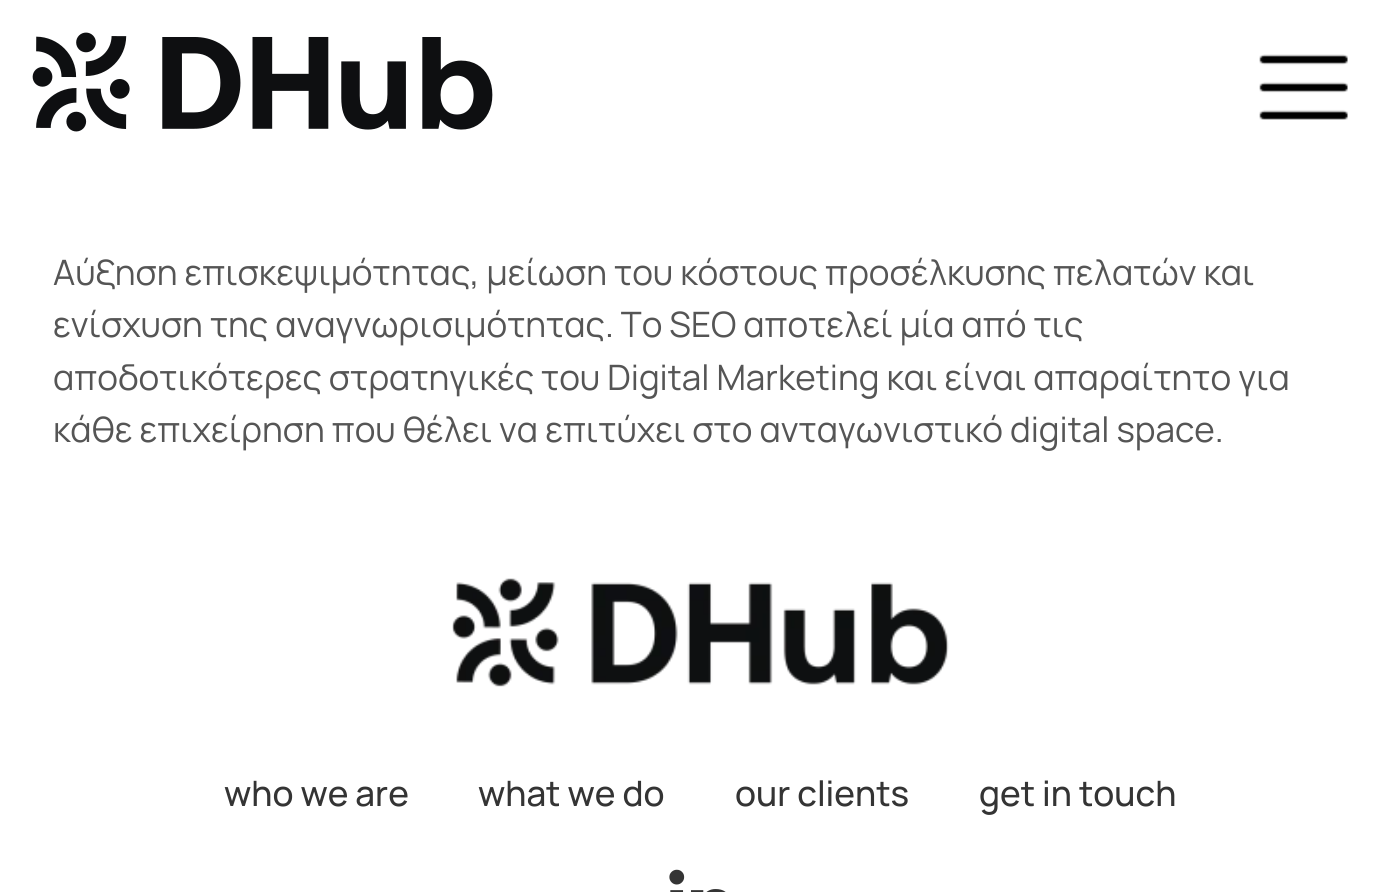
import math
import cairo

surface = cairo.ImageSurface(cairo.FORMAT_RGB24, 1399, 892)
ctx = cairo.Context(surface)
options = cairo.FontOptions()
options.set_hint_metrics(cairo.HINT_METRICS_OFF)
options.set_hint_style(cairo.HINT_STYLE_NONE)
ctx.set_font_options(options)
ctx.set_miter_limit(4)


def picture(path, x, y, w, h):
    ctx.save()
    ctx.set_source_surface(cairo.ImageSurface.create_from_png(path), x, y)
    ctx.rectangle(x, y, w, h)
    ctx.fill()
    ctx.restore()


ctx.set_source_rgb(1, 1, 1)
ctx.paint()
picture("img1.png", 32, 32, 461, 100)
picture("img2.png", 1259, 54, 89, 66)
ctx.select_font_face("Manrope")
ctx.set_font_size(35)
ctx.set_source_rgb(0.333, 0.333, 0.333)
ctx.move_to(53, 285)
ctx.show_text("Αύξηση επισκεψιμότητας, μείωση του κόστους προσέλκυσης πελατών και")
ctx.move_to(53, 337)
ctx.show_text("ενίσχυση της αναγνωρισιμότητας. Το SEO αποτελεί μία από τις")
ctx.move_to(53, 390)
ctx.show_text("αποδοτικότερες στρατηγικές του Digital Marketing και είναι απαραίτητο για")
ctx.move_to(53, 442)
ctx.show_text("κάθε επιχείρηση που θέλει να επιτύχει στο ανταγωνιστικό digital space.")
picture("img3.png", 452, 578, 497, 109)
ctx.select_font_face("Manrope Medium")
ctx.set_source_rgb(0.204, 0.204, 0.204)
ctx.move_to(224, 806)
ctx.show_text("who we are")
ctx.move_to(478, 806)
ctx.show_text("what we do")
ctx.move_to(735, 806)
ctx.show_text("our clients")
ctx.move_to(979, 806)
ctx.show_text("get in touch")
picture("img4.png", 669, 869, 57, 23)
surface.write_to_png("page.png")
